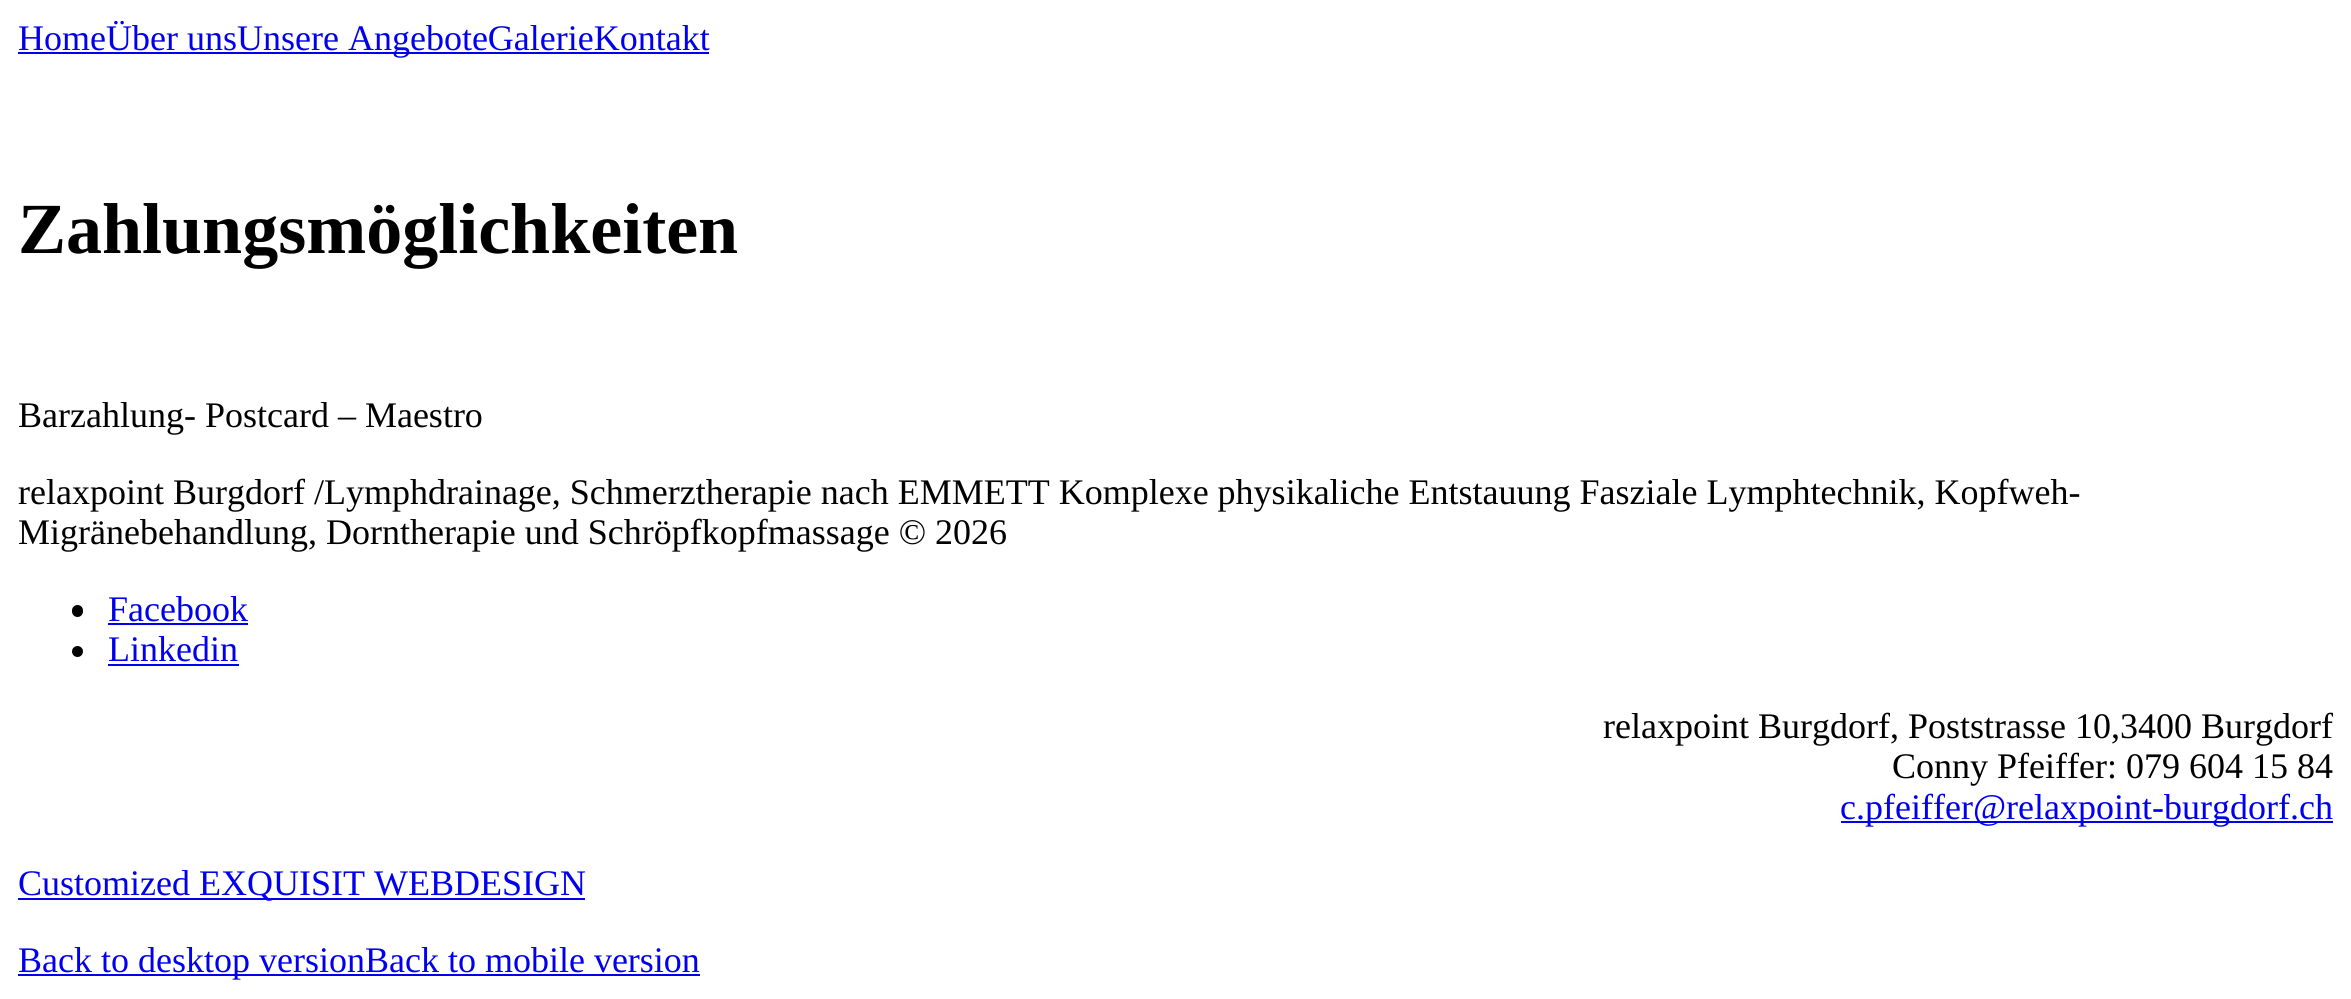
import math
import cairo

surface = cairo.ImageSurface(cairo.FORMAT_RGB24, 2351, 999)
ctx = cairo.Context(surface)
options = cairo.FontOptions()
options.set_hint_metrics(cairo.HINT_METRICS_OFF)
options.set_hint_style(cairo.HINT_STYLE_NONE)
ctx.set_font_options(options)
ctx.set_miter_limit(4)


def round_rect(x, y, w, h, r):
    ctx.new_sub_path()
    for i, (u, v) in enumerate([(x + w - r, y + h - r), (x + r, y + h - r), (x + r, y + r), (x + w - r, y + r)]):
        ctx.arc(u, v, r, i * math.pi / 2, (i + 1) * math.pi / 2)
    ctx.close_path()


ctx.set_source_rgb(1, 1, 1)
ctx.paint()
ctx.set_source_rgb(0, 0, 0.933)
ctx.rectangle(18, 52, 691, 2)
ctx.fill()
ctx.select_font_face("Liberation Serif")
ctx.set_font_size(36)
ctx.move_to(18, 50)
ctx.show_text("HomeÜber unsUnsere AngeboteGalerieKontakt")
ctx.select_font_face("Liberation Serif", cairo.FONT_SLANT_NORMAL, cairo.FONT_WEIGHT_BOLD)
ctx.set_font_size(72)
ctx.set_source_rgb(0, 0, 0)
ctx.move_to(18, 253)
ctx.show_text("Zahlungsmöglichkeiten")
ctx.select_font_face("Liberation Serif")
ctx.set_font_size(36)
ctx.move_to(18, 427)
ctx.show_text("Barzahlung- Postcard – Maestro")
ctx.move_to(18, 504)
ctx.show_text("relaxpoint Burgdorf /Lymphdrainage, Schmerztherapie nach EMMETT Komplexe physikaliche Entstauung Fasziale Lymphtechnik, Kopfweh-")
ctx.move_to(18, 544)
ctx.show_text("Migränebehandlung, Dorntherapie und Schröpfkopfmassage © 2026")
round_rect(72, 605, 11, 12, 5.5)
ctx.fill()
ctx.set_source_rgb(0, 0, 0.933)
ctx.move_to(108, 621)
ctx.show_text("Facebook")
ctx.rectangle(108, 623, 140, 2)
ctx.fill()
ctx.set_source_rgb(0, 0, 0)
ctx.arc(77.5, 651.5, 5.5, 0, 2 * math.pi)
ctx.fill()
ctx.set_source_rgb(0, 0, 0.933)
ctx.move_to(108, 661)
ctx.show_text("Linkedin")
ctx.rectangle(108, 664, 131, 2)
ctx.fill()
ctx.set_source_rgb(0, 0, 0)
ctx.move_to(1603, 738)
ctx.show_text("relaxpoint Burgdorf, Poststrasse 10,3400 Burgdorf")
ctx.move_to(1892, 778)
ctx.show_text("Conny Pfeiffer: 079 604 15 84")
ctx.set_source_rgb(0, 0, 0.933)
ctx.rectangle(1841, 821, 492, 2)
ctx.fill()
ctx.move_to(1840, 819)
ctx.show_text("c.pfeiffer@relaxpoint-burgdorf.ch")
ctx.rectangle(18, 898, 567, 2)
ctx.fill()
ctx.move_to(18, 895)
ctx.show_text("Customized EXQUISIT WEBDESIGN")
ctx.rectangle(18, 974, 682, 2)
ctx.fill()
ctx.move_to(18, 972)
ctx.show_text("Back to desktop versionBack to mobile version")
surface.write_to_png("page.png")
